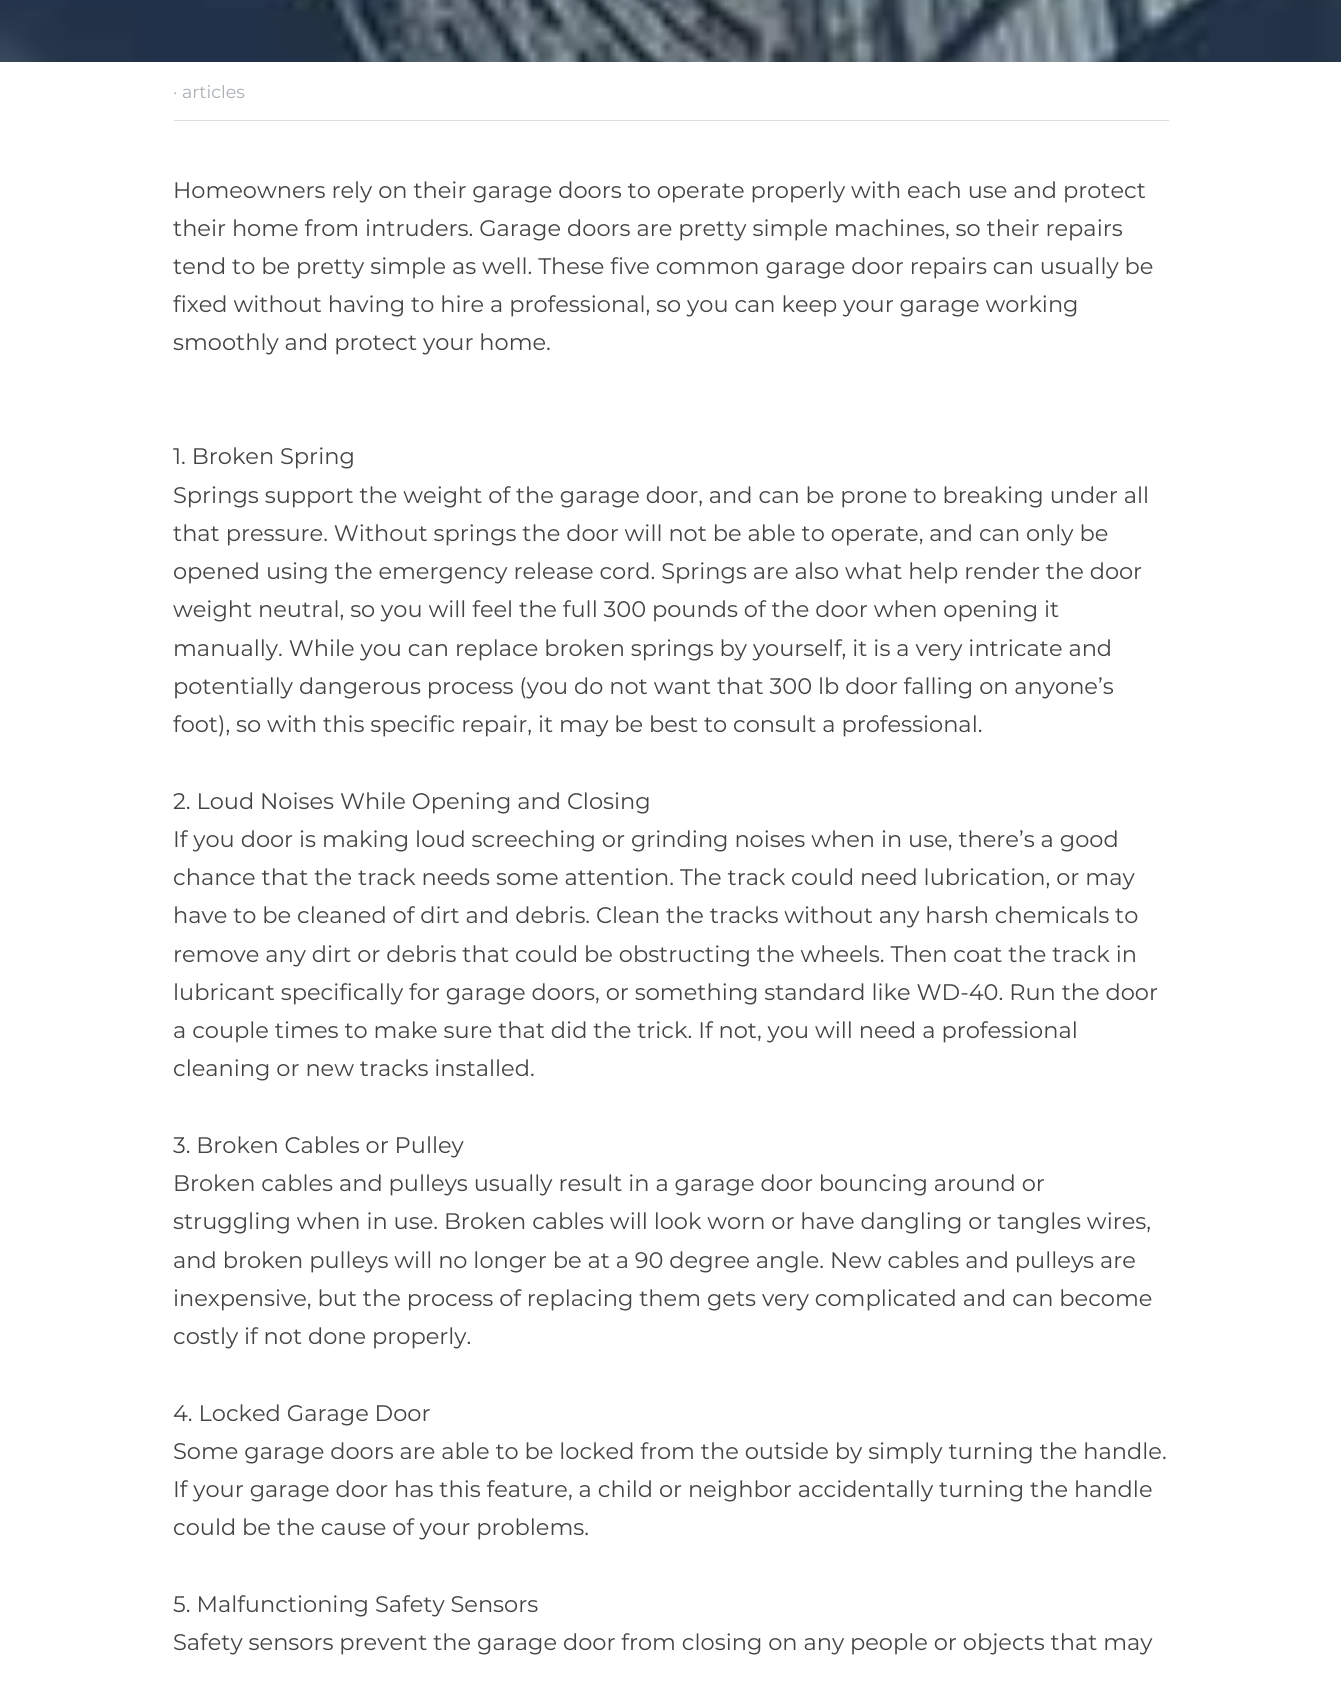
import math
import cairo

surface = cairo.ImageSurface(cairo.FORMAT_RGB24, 1341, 1681)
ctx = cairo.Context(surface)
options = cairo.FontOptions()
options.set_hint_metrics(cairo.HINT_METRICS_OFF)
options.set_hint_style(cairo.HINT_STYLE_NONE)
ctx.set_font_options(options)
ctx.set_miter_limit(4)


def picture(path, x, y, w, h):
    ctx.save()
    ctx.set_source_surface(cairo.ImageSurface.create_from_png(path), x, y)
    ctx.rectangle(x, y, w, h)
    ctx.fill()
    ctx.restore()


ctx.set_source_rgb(1, 1, 1)
ctx.paint()
picture("img1.png", 0, 0, 1341, 62)
ctx.set_source_rgb(0.867, 0.867, 0.867)
ctx.rectangle(174, 120, 995, 1)
ctx.fill()
ctx.select_font_face("Montserrat")
ctx.set_font_size(17.5)
ctx.set_source_rgb(0.663, 0.682, 0.698)
ctx.move_to(173, 98)
ctx.show_text("· articles")
ctx.set_font_size(22.5)
ctx.set_source_rgb(0.267, 0.267, 0.267)
ctx.move_to(173, 198)
ctx.show_text("Homeowners rely on their garage doors to operate properly with each use and protect")
ctx.move_to(173, 236)
ctx.show_text("their home from intruders. Garage doors are pretty simple machines, so their repairs")
ctx.move_to(173, 274)
ctx.show_text("tend to be pretty simple as well. These five common garage door repairs can usually be")
ctx.move_to(173, 312)
ctx.show_text("fixed without having to hire a professional, so you can keep your garage working")
ctx.move_to(173, 350)
ctx.show_text("smoothly and protect your home.")
ctx.move_to(173, 464)
ctx.show_text("1. Broken Spring")
ctx.move_to(173, 503)
ctx.show_text("Springs support the weight of the garage door, and can be prone to breaking under all")
ctx.move_to(173, 541)
ctx.show_text("that pressure. Without springs the door will not be able to operate, and can only be")
ctx.move_to(173, 579)
ctx.show_text("opened using the emergency release cord. Springs are also what help render the door")
ctx.move_to(173, 617)
ctx.show_text("weight neutral, so you will feel the full 300 pounds of the door when opening it")
ctx.move_to(173, 656)
ctx.show_text("manually. While you can replace broken springs by yourself, it is a very intricate and")
ctx.move_to(173, 694)
ctx.show_text("potentially dangerous process (you do not want that 300 lb door falling on anyone’s")
ctx.move_to(173, 732)
ctx.show_text("foot), so with this specific repair, it may be best to consult a professional.")
ctx.move_to(173, 809)
ctx.show_text("2. Loud Noises While Opening and Closing")
ctx.move_to(173, 847)
ctx.show_text("If you door is making loud screeching or grinding noises when in use, there’s a good")
ctx.move_to(173, 885)
ctx.show_text("chance that the track needs some attention. The track could need lubrication, or may")
ctx.move_to(173, 923)
ctx.show_text("have to be cleaned of dirt and debris. Clean the tracks without any harsh chemicals to")
ctx.move_to(173, 962)
ctx.show_text("remove any dirt or debris that could be obstructing the wheels. Then coat the track in")
ctx.move_to(173, 1000)
ctx.show_text("lubricant specifically for garage doors, or something standard like WD-40. Run the door")
ctx.move_to(173, 1038)
ctx.show_text("a couple times to make sure that did the trick. If not, you will need a professional")
ctx.move_to(173, 1076)
ctx.show_text("cleaning or new tracks installed.")
ctx.move_to(173, 1153)
ctx.show_text("3. Broken Cables or Pulley")
ctx.move_to(173, 1191)
ctx.show_text("Broken cables and pulleys usually result in a garage door bouncing around or")
ctx.move_to(173, 1229)
ctx.show_text("struggling when in use. Broken cables will look worn or have dangling or tangles wires,")
ctx.move_to(173, 1268)
ctx.show_text("and broken pulleys will no longer be at a 90 degree angle. New cables and pulleys are")
ctx.move_to(173, 1306)
ctx.show_text("inexpensive, but the process of replacing them gets very complicated and can become")
ctx.move_to(173, 1344)
ctx.show_text("costly if not done properly.")
ctx.move_to(173, 1421)
ctx.show_text("4. Locked Garage Door")
ctx.move_to(173, 1459)
ctx.show_text("Some garage doors are able to be locked from the outside by simply turning the handle.")
ctx.move_to(173, 1497)
ctx.show_text("If your garage door has this feature, a child or neighbor accidentally turning the handle")
ctx.move_to(173, 1535)
ctx.show_text("could be the cause of your problems.")
ctx.move_to(173, 1612)
ctx.show_text("5. Malfunctioning Safety Sensors")
ctx.move_to(173, 1650)
ctx.show_text("Safety sensors prevent the garage door from closing on any people or objects that may")
surface.write_to_png("page.png")
